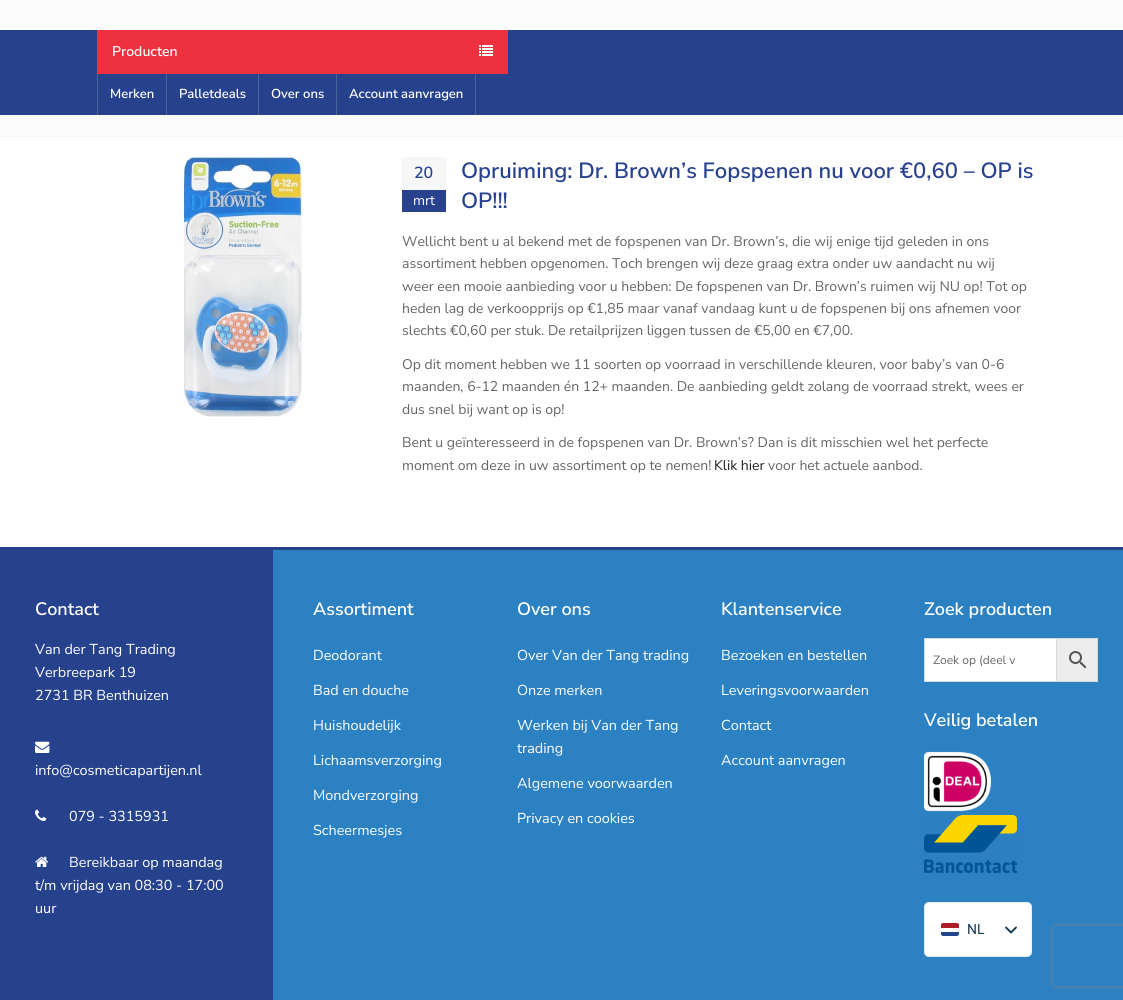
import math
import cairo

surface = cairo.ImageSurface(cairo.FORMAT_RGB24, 1123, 1000)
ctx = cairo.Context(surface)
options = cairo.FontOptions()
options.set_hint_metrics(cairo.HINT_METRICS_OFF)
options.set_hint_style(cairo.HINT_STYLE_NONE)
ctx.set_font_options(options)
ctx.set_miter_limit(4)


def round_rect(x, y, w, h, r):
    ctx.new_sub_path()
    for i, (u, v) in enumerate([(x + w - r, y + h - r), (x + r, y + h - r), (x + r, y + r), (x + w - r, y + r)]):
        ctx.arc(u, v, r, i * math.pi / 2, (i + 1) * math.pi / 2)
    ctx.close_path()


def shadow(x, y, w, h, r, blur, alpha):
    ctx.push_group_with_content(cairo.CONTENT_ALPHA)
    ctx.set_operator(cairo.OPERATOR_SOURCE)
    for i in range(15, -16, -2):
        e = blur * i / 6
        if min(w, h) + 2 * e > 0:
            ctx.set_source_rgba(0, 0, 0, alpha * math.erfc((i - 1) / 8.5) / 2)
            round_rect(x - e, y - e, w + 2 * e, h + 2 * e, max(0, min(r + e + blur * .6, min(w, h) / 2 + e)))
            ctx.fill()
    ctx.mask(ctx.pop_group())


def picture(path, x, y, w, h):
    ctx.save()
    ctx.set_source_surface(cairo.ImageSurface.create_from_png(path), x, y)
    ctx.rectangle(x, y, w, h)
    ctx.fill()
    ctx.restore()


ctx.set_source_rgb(1, 1, 1)
ctx.paint()
ctx.set_source_rgb(0.988, 0.988, 0.988)
ctx.rectangle(0, 0, 1123, 136)
ctx.fill()
ctx.set_source_rgb(0.153, 0.259, 0.553)
ctx.rectangle(0, 30, 1123, 85)
ctx.fill()
ctx.set_source_rgb(0.929, 0.192, 0.243)
ctx.rectangle(97, 30, 411, 44)
ctx.fill()
ctx.select_font_face("Nunito Sans SemiBold")
ctx.set_font_size(14)
ctx.set_source_rgb(1, 1, 1)
ctx.move_to(112, 56)
ctx.show_text("Producten")
picture("img1.png", 479, 45, 14, 11)
ctx.set_source_rgb(0.282, 0.408, 0.569)
ctx.rectangle(97, 74, 1, 41)
ctx.fill()
ctx.set_font_size(13)
ctx.set_source_rgb(1, 1, 1)
ctx.move_to(110, 98)
ctx.show_text("Merken")
ctx.set_source_rgb(0.282, 0.408, 0.569)
ctx.rectangle(166, 74, 1, 41)
ctx.fill()
ctx.set_source_rgb(1, 1, 1)
ctx.move_to(179, 98)
ctx.show_text("Palletdeals")
ctx.set_source_rgb(0.282, 0.408, 0.569)
ctx.rectangle(258, 74, 1, 41)
ctx.fill()
ctx.set_source_rgb(1, 1, 1)
ctx.move_to(271, 98)
ctx.show_text("Over ons")
ctx.set_source_rgb(0.282, 0.408, 0.569)
ctx.rectangle(475, 74, 1, 41)
ctx.fill()
ctx.rectangle(336, 74, 1, 41)
ctx.fill()
ctx.set_source_rgb(1, 1, 1)
ctx.move_to(349, 98)
ctx.show_text("Account aanvragen")
ctx.set_source_rgb(0.961, 0.961, 0.961)
ctx.rectangle(0, 136, 1123, 1)
ctx.fill()
picture("img2.png", 183, 157, 119, 260)
ctx.set_source_rgb(0.965, 0.965, 0.965)
round_rect(402, 157, 44, 55, 3)
ctx.fill()
ctx.set_font_size(16)
ctx.set_source_rgb(0.157, 0.259, 0.553)
ctx.move_to(414, 178)
ctx.show_text("20")
ctx.rectangle(402, 190, 44, 22)
ctx.fill()
ctx.select_font_face("Nunito Sans")
ctx.set_font_size(14)
ctx.set_source_rgb(1, 1, 1)
ctx.move_to(413, 205)
ctx.show_text("mrt")
ctx.select_font_face("Nunito Sans SemiBold")
ctx.set_font_size(22)
ctx.set_source_rgb(0.157, 0.259, 0.553)
ctx.move_to(461, 178)
ctx.show_text("Opruiming: Dr. Brown’s Fopspenen nu voor €0,60 – OP is")
ctx.move_to(461, 208)
ctx.show_text("OP!!!")
ctx.select_font_face("Nunito Sans")
ctx.set_font_size(14)
ctx.set_source_rgb(0.396, 0.396, 0.396)
ctx.move_to(402, 246)
ctx.show_text("Wellicht bent u al bekend met de fopspenen van Dr. Brown’s, die wij enige tijd geleden in ons")
ctx.move_to(402, 268)
ctx.show_text("assortiment hebben opgenomen. Toch brengen wij deze graag extra onder uw aandacht nu wij")
ctx.move_to(402, 291)
ctx.show_text("weer een mooie aanbieding voor u hebben: De fopspenen van Dr. Brown’s ruimen wij NU op! Tot op")
ctx.move_to(402, 313)
ctx.show_text("heden lag de verkoopprijs op €1,85 maar vanaf vandaag kunt u de fopspenen bij ons afnemen voor")
ctx.move_to(402, 335)
ctx.show_text("slechts €0,60 per stuk. De retailprijzen liggen tussen de €5,00 en €7,00.")
ctx.move_to(402, 369)
ctx.show_text("Op dit moment hebben we 11 soorten op voorraad in verschillende kleuren, voor baby’s van 0-6")
ctx.move_to(402, 391)
ctx.show_text("maanden, 6-12 maanden én 12+ maanden. De aanbieding geldt zolang de voorraad strekt, wees er")
ctx.move_to(402, 414)
ctx.show_text("dus snel bij want op is op!")
ctx.move_to(402, 447)
ctx.show_text("Bent u geïnteresseerd in de fopspenen van Dr. Brown’s? Dan is dit misschien wel het perfecte")
ctx.move_to(402, 470)
ctx.show_text("moment om deze in uw assortiment op te nemen!")
ctx.set_source_rgb(0.129, 0.129, 0.129)
ctx.move_to(714, 470)
ctx.show_text("Klik hier")
ctx.set_source_rgb(0.396, 0.396, 0.396)
ctx.move_to(768, 470)
ctx.show_text("voor het actuele aanbod.")
ctx.set_source_rgb(0.153, 0.259, 0.553)
ctx.rectangle(0, 547, 1123, 453)
ctx.fill()
ctx.select_font_face("Nunito Sans SemiBold")
ctx.set_font_size(18)
ctx.set_source_rgb(1, 1, 1)
ctx.move_to(35, 615)
ctx.show_text("Contact")
ctx.select_font_face("Nunito Sans")
ctx.set_font_size(14.4)
ctx.move_to(35, 654)
ctx.show_text("Van der Tang Trading")
ctx.move_to(35, 677)
ctx.show_text("Verbreepark 19")
ctx.move_to(35, 700)
ctx.show_text("2731 BR Benthuizen")
picture("img3.png", 35, 741, 15, 12)
ctx.move_to(35, 775)
ctx.show_text("info@cosmeticapartijen.nl")
picture("img4.png", 35, 809, 12, 12)
ctx.move_to(69, 821)
ctx.show_text("079 - 3315931")
picture("img5.png", 35, 856, 14, 11)
ctx.move_to(69, 867)
ctx.show_text("Bereikbaar op maandag")
ctx.move_to(35, 890)
ctx.show_text("t/m vrijdag van 08:30 - 17:00")
ctx.move_to(35, 913)
ctx.show_text("uur")
ctx.set_source_rgb(0.169, 0.506, 0.761)
ctx.rectangle(273, 550, 850, 450)
ctx.fill()
ctx.select_font_face("Nunito Sans SemiBold")
ctx.set_font_size(18)
ctx.set_source_rgb(1, 1, 1)
ctx.move_to(313, 615)
ctx.show_text("Assortiment")
ctx.select_font_face("Nunito Sans")
ctx.set_font_size(14.4)
ctx.move_to(313, 660)
ctx.show_text("Deodorant")
ctx.move_to(313, 695)
ctx.show_text("Bad en douche")
ctx.move_to(313, 730)
ctx.show_text("Huishoudelijk")
ctx.move_to(313, 765)
ctx.show_text("Lichaamsverzorging")
ctx.move_to(313, 800)
ctx.show_text("Mondverzorging")
ctx.move_to(313, 835)
ctx.show_text("Scheermesjes")
ctx.select_font_face("Nunito Sans SemiBold")
ctx.set_font_size(18)
ctx.move_to(517, 615)
ctx.show_text("Over ons")
ctx.select_font_face("Nunito Sans")
ctx.set_font_size(14.4)
ctx.move_to(517, 660)
ctx.show_text("Over Van der Tang trading")
ctx.move_to(517, 695)
ctx.show_text("Onze merken")
ctx.move_to(517, 730)
ctx.show_text("Werken bij Van der Tang")
ctx.move_to(517, 753)
ctx.show_text("trading")
ctx.move_to(517, 788)
ctx.show_text("Algemene voorwaarden")
ctx.move_to(517, 823)
ctx.show_text("Privacy en cookies")
ctx.select_font_face("Nunito Sans SemiBold")
ctx.set_font_size(18)
ctx.move_to(721, 615)
ctx.show_text("Klantenservice")
ctx.select_font_face("Nunito Sans")
ctx.set_font_size(14.4)
ctx.move_to(721, 660)
ctx.show_text("Bezoeken en bestellen")
ctx.move_to(721, 695)
ctx.show_text("Leveringsvoorwaarden")
ctx.move_to(721, 730)
ctx.show_text("Contact")
ctx.move_to(721, 765)
ctx.show_text("Account aanvragen")
ctx.select_font_face("Nunito Sans SemiBold")
ctx.set_font_size(18)
ctx.move_to(924, 615)
ctx.show_text("Zoek producten")
ctx.set_source_rgb(0.929, 0.929, 0.929)
ctx.rectangle(1056.5, 638.5, 41, 43)
ctx.fill_preserve()
ctx.set_source_rgb(0.847, 0.847, 0.847)
ctx.set_line_width(1)
ctx.stroke()
ctx.set_source_rgb(1, 1, 1)
ctx.rectangle(924.5, 638.5, 132, 43)
ctx.fill_preserve()
ctx.set_source_rgb(0.847, 0.847, 0.847)
ctx.stroke()
ctx.select_font_face("Nunito Sans")
ctx.set_font_size(12)
ctx.set_source_rgb(0.396, 0.396, 0.396)
ctx.move_to(933, 664)
ctx.show_text("Zoek op (deel v")
picture("img6.png", 1069, 651, 18, 18)
ctx.select_font_face("Nunito Sans SemiBold")
ctx.set_font_size(18)
ctx.set_source_rgb(1, 1, 1)
ctx.move_to(924, 726)
ctx.show_text("Veilig betalen")
picture("img7.png", 924, 751, 67, 62)
picture("img8.png", 924, 815, 93, 58)
round_rect(924, 902, 108, 55, 5)
ctx.fill()
round_rect(924.5, 902.5, 107, 54, 4.5)
ctx.set_source_rgba(0.078, 0.22, 0.322, 0.1)
ctx.stroke()
ctx.set_source_rgb(0.682, 0.11, 0.157)
ctx.new_path()
ctx.move_to(943, 923)
ctx.line_to(957, 923)
ctx.curve_to(958, 923, 959, 924, 959, 925)
ctx.line_to(959, 928)
ctx.line_to(941, 928)
ctx.line_to(941, 925)
ctx.curve_to(941, 924, 942, 923, 943, 923)
ctx.close_path()
ctx.fill()
ctx.set_source_rgb(0.129, 0.275, 0.545)
ctx.new_path()
ctx.move_to(941, 932)
ctx.line_to(959, 932)
ctx.line_to(959, 934)
ctx.curve_to(959, 935, 958, 936, 957, 936)
ctx.line_to(943, 936)
ctx.curve_to(942, 936, 941, 935, 941, 934)
ctx.close_path()
ctx.fill()
ctx.select_font_face("Roboto")
ctx.set_font_size(14)
ctx.set_source_rgb(0.078, 0.22, 0.322)
ctx.move_to(967, 934)
ctx.show_text("NL")
ctx.new_path()
ctx.move_to(1006, 927.5)
ctx.line_to(1011, 932.5)
ctx.line_to(1016, 927.5)
ctx.set_line_width(1.9)
ctx.set_line_cap(cairo.LINE_CAP_ROUND)
ctx.set_line_join(cairo.LINE_JOIN_ROUND)
ctx.stroke()
ctx.save()
ctx.set_fill_rule(cairo.FILL_RULE_EVEN_ODD)
ctx.new_path()
ctx.move_to(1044, 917)
ctx.line_to(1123, 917)
ctx.line_to(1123, 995)
ctx.line_to(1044, 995)
ctx.close_path()
ctx.move_to(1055, 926)
ctx.line_to(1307, 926)
ctx.curve_to(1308, 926, 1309, 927, 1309, 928)
ctx.line_to(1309, 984)
ctx.curve_to(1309, 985, 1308, 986, 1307, 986)
ctx.line_to(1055, 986)
ctx.curve_to(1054, 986, 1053, 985, 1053, 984)
ctx.line_to(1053, 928)
ctx.curve_to(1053, 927, 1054, 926, 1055, 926)
ctx.close_path()
ctx.clip()
ctx.set_source_rgb(0.502, 0.502, 0.502)
shadow(1053, 926, 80, 60, 2, 2.5, 1)
ctx.restore()
surface.write_to_png("page.png")
